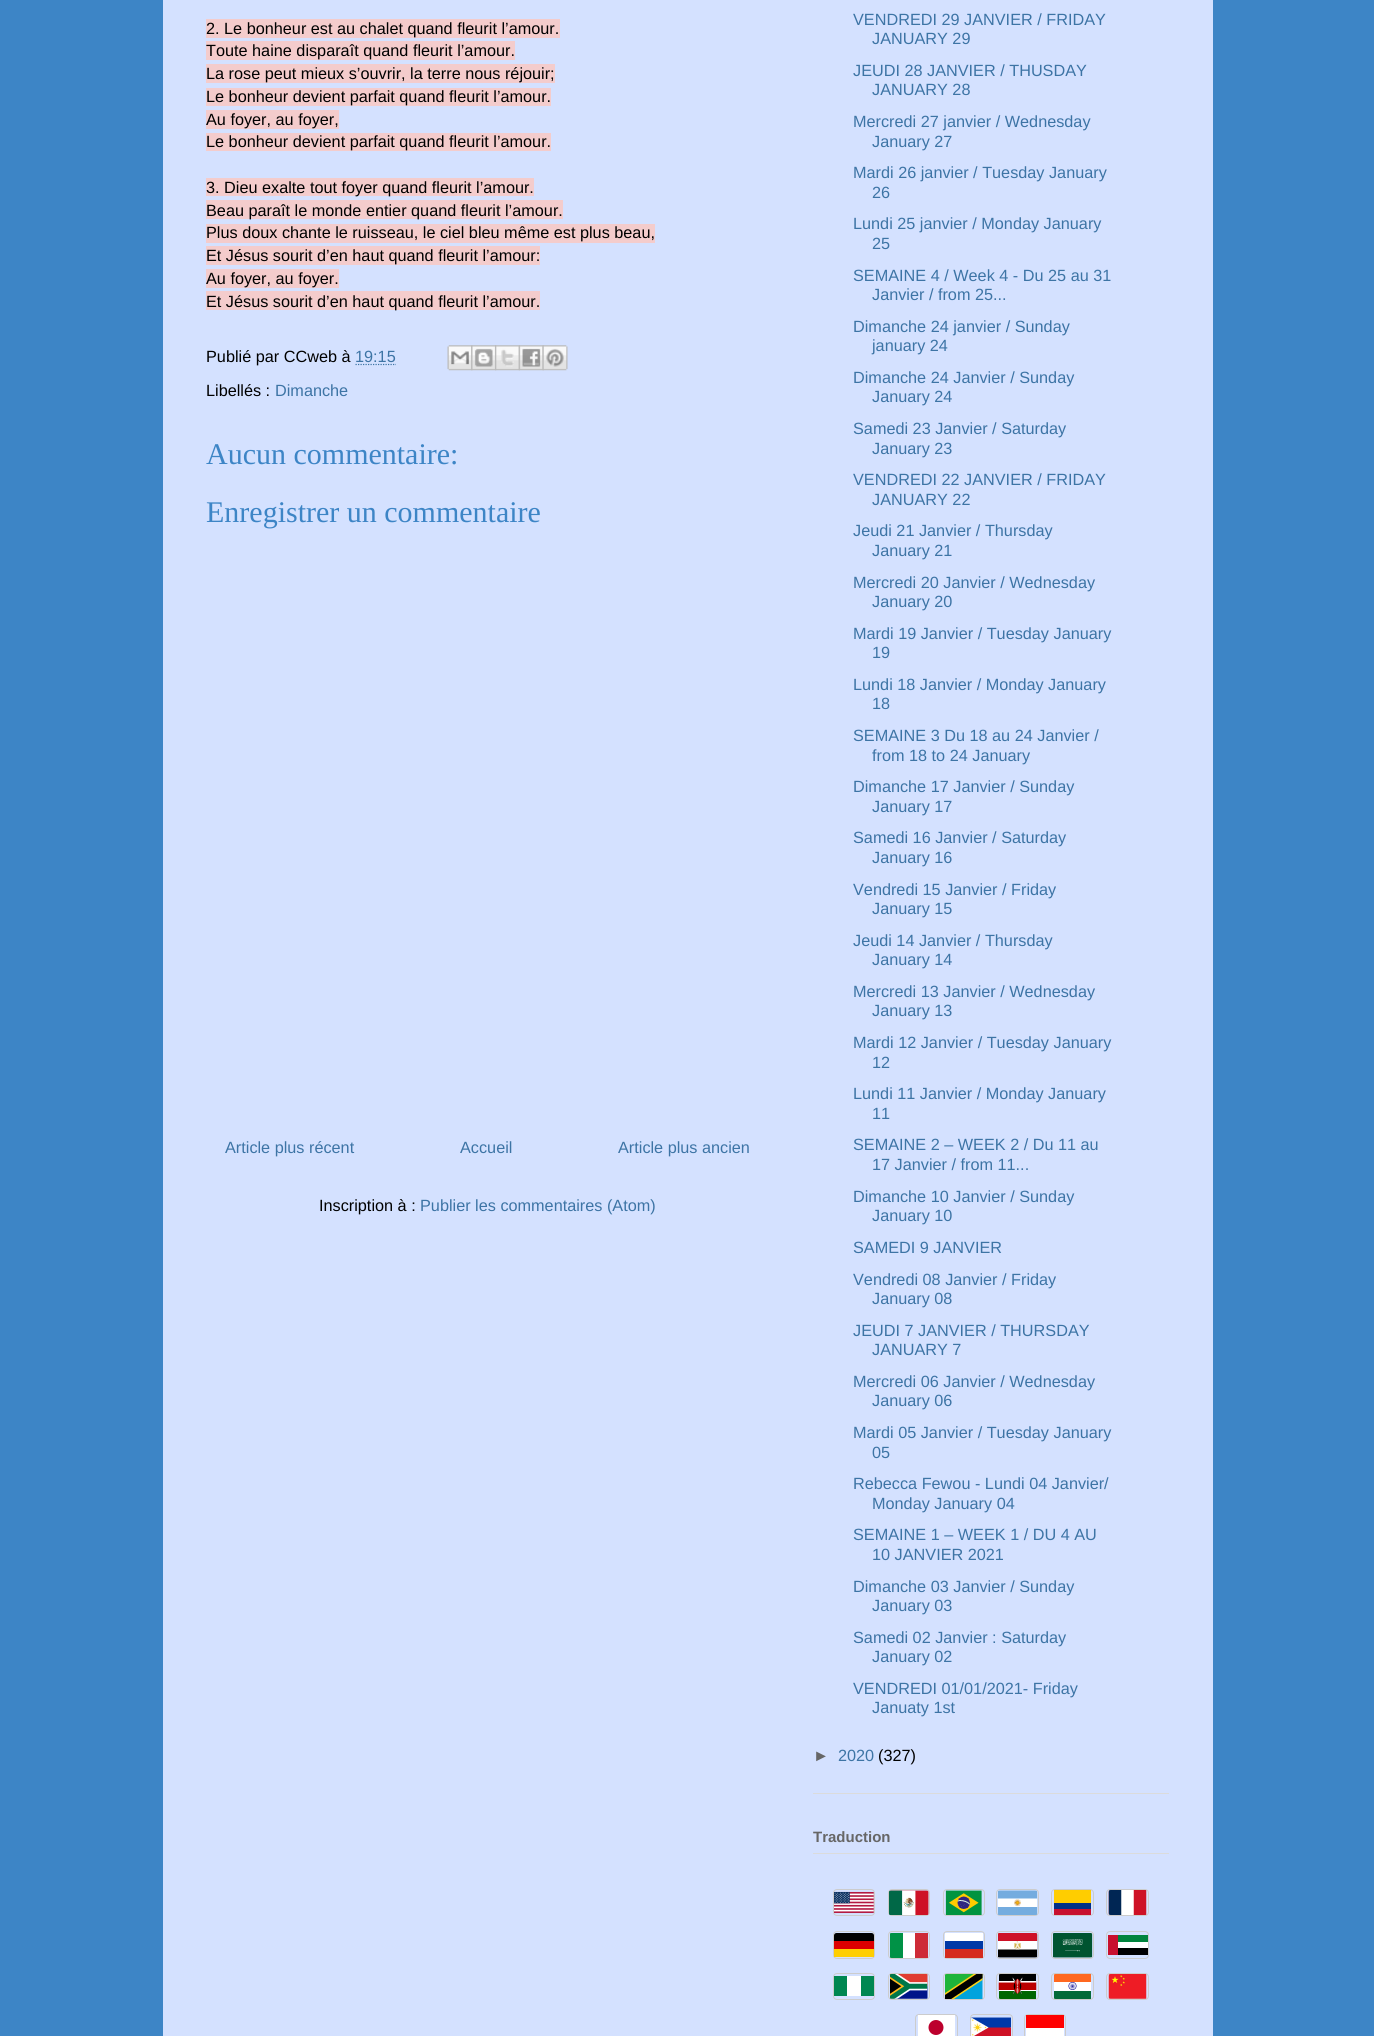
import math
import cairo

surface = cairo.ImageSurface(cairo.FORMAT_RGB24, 1374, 2036)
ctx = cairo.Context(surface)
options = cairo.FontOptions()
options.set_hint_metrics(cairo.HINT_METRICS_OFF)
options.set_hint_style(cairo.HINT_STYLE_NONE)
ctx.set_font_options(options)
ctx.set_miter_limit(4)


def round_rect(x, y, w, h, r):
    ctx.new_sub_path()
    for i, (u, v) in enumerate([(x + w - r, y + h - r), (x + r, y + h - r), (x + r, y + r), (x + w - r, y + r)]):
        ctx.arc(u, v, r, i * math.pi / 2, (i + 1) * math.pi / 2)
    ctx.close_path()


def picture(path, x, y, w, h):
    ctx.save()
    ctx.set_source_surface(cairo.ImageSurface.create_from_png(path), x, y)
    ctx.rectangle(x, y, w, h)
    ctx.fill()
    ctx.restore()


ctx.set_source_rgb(0.239, 0.522, 0.776)
ctx.paint()
ctx.set_source_rgb(0.831, 0.882, 1)
ctx.rectangle(163, 0, 1050, 2036)
ctx.fill()
ctx.set_source_rgb(0.957, 0.8, 0.8)
ctx.rectangle(206, 19, 354, 19)
ctx.fill()
ctx.select_font_face("Liberation Sans")
ctx.set_font_size(16.25)
ctx.set_source_rgb(0, 0, 0)
ctx.move_to(206, 34)
ctx.show_text("2. Le bonheur est au chalet quand fleurit l’amour.")
ctx.set_source_rgb(0.957, 0.8, 0.8)
ctx.rectangle(206, 41, 309, 19)
ctx.fill()
ctx.set_source_rgb(0, 0, 0)
ctx.move_to(206, 56)
ctx.show_text("Toute haine disparaît quand fleurit l’amour.")
ctx.set_source_rgb(0.957, 0.8, 0.8)
ctx.rectangle(206, 64, 349, 19)
ctx.fill()
ctx.set_source_rgb(0, 0, 0)
ctx.move_to(206, 79)
ctx.show_text("La rose peut mieux s’ouvrir, la terre nous réjouir;")
ctx.set_source_rgb(0.957, 0.8, 0.8)
ctx.rectangle(206, 88, 345, 18)
ctx.fill()
ctx.set_source_rgb(0, 0, 0)
ctx.move_to(206, 102)
ctx.show_text("Le bonheur devient parfait quand fleurit l’amour.")
ctx.set_source_rgb(0.957, 0.8, 0.8)
ctx.rectangle(206, 110, 133, 19)
ctx.fill()
ctx.set_source_rgb(0, 0, 0)
ctx.move_to(206, 125)
ctx.show_text("Au foyer, au foyer,")
ctx.set_source_rgb(0.957, 0.8, 0.8)
ctx.rectangle(206, 133, 345, 18)
ctx.fill()
ctx.set_source_rgb(0, 0, 0)
ctx.move_to(206, 147)
ctx.show_text("Le bonheur devient parfait quand fleurit l’amour.")
ctx.set_source_rgb(0.957, 0.8, 0.8)
ctx.rectangle(206, 178, 328, 18)
ctx.fill()
ctx.set_source_rgb(0, 0, 0)
ctx.move_to(206, 193)
ctx.show_text("3. Dieu exalte tout foyer quand fleurit l’amour.")
ctx.set_source_rgb(0.957, 0.8, 0.8)
ctx.rectangle(206, 200, 357, 19)
ctx.fill()
ctx.set_source_rgb(0, 0, 0)
ctx.move_to(206, 216)
ctx.show_text("Beau paraît le monde entier quand fleurit l’amour.")
ctx.set_source_rgb(0.957, 0.8, 0.8)
ctx.rectangle(206, 224, 449, 19)
ctx.fill()
ctx.set_source_rgb(0, 0, 0)
ctx.move_to(206, 238)
ctx.show_text("Plus doux chante le ruisseau, le ciel bleu même est plus beau,")
ctx.set_source_rgb(0.957, 0.8, 0.8)
ctx.rectangle(206, 246, 334, 19)
ctx.fill()
ctx.set_source_rgb(0, 0, 0)
ctx.move_to(206, 261)
ctx.show_text("Et Jésus sourit d’en haut quand fleurit l’amour:")
ctx.set_source_rgb(0.957, 0.8, 0.8)
ctx.rectangle(206, 269, 133, 19)
ctx.fill()
ctx.set_source_rgb(0, 0, 0)
ctx.move_to(206, 284)
ctx.show_text("Au foyer, au foyer.")
ctx.set_source_rgb(0.957, 0.8, 0.8)
ctx.rectangle(206, 291, 334, 19)
ctx.fill()
ctx.set_source_rgb(0, 0, 0)
ctx.move_to(206, 307)
ctx.show_text("Et Jésus sourit d’en haut quand fleurit l’amour.")
ctx.move_to(206, 362)
ctx.show_text("Publié par CCweb à")
ctx.set_source_rgb(0.239, 0.455, 0.647)
ctx.move_to(355, 362)
ctx.show_text("19:15")
ctx.new_path()
ctx.move_to(355.5, 364.5)
ctx.line_to(396, 364.5)
ctx.set_line_width(1.2)
ctx.set_dash([1.25, 1.25])
ctx.stroke()
picture("img1.png", 447, 345, 26, 26)
picture("img2.png", 471, 345, 26, 26)
picture("img3.png", 495, 345, 25, 26)
picture("img4.png", 518, 345, 26, 26)
picture("img5.png", 542, 345, 26, 26)
ctx.set_source_rgb(0, 0, 0)
ctx.move_to(206, 396)
ctx.show_text("Libellés :")
ctx.set_source_rgb(0.239, 0.455, 0.647)
ctx.move_to(275, 396)
ctx.show_text("Dimanche")
ctx.select_font_face("Liberation Serif")
ctx.set_font_size(30)
ctx.set_source_rgb(0.239, 0.522, 0.776)
ctx.move_to(206, 464)
ctx.show_text("Aucun commentaire:")
ctx.move_to(206, 522)
ctx.show_text("Enregistrer un commentaire")
ctx.select_font_face("Liberation Sans")
ctx.set_font_size(16.25)
ctx.set_source_rgb(0.239, 0.455, 0.647)
ctx.move_to(225, 1153)
ctx.show_text("Article plus récent")
ctx.move_to(460, 1153)
ctx.show_text("Accueil")
ctx.move_to(618, 1153)
ctx.show_text("Article plus ancien")
ctx.set_source_rgb(0, 0, 0)
ctx.move_to(319, 1211)
ctx.show_text("Inscription à :")
ctx.set_source_rgb(0.239, 0.455, 0.647)
ctx.move_to(420, 1211)
ctx.show_text("Publier les commentaires (Atom)")
ctx.set_source_rgb(0.859, 0.859, 0.859)
ctx.rectangle(813, 1793, 356, 1)
ctx.fill()
ctx.set_source_rgb(0.239, 0.455, 0.647)
ctx.move_to(853, 25)
ctx.show_text("VENDREDI 29 JANVIER / FRIDAY")
ctx.move_to(872, 44)
ctx.show_text("JANUARY 29")
ctx.move_to(853, 76)
ctx.show_text("JEUDI 28 JANVIER / THUSDAY")
ctx.move_to(872, 95)
ctx.show_text("JANUARY 28")
ctx.move_to(853, 127)
ctx.show_text("Mercredi 27 janvier / Wednesday")
ctx.move_to(872, 147)
ctx.show_text("January 27")
ctx.move_to(853, 178)
ctx.show_text("Mardi 26 janvier / Tuesday January")
ctx.move_to(872, 198)
ctx.show_text("26")
ctx.move_to(853, 229)
ctx.show_text("Lundi 25 janvier / Monday January")
ctx.move_to(872, 249)
ctx.show_text("25")
ctx.move_to(853, 281)
ctx.show_text("SEMAINE 4 / Week 4 - Du 25 au 31")
ctx.move_to(872, 300)
ctx.show_text("Janvier / from 25...")
ctx.move_to(853, 332)
ctx.show_text("Dimanche 24 janvier / Sunday")
ctx.move_to(872, 351)
ctx.show_text("january 24")
ctx.move_to(853, 383)
ctx.show_text("Dimanche 24 Janvier / Sunday")
ctx.move_to(872, 402)
ctx.show_text("January 24")
ctx.move_to(853, 434)
ctx.show_text("Samedi 23 Janvier / Saturday")
ctx.move_to(872, 454)
ctx.show_text("January 23")
ctx.move_to(853, 485)
ctx.show_text("VENDREDI 22 JANVIER / FRIDAY")
ctx.move_to(872, 505)
ctx.show_text("JANUARY 22")
ctx.move_to(853, 536)
ctx.show_text("Jeudi 21 Janvier / Thursday")
ctx.move_to(872, 556)
ctx.show_text("January 21")
ctx.move_to(853, 588)
ctx.show_text("Mercredi 20 Janvier / Wednesday")
ctx.move_to(872, 607)
ctx.show_text("January 20")
ctx.move_to(853, 639)
ctx.show_text("Mardi 19 Janvier / Tuesday January")
ctx.move_to(872, 658)
ctx.show_text("19")
ctx.move_to(853, 690)
ctx.show_text("Lundi 18 Janvier / Monday January")
ctx.move_to(872, 709)
ctx.show_text("18")
ctx.move_to(853, 741)
ctx.show_text("SEMAINE 3 Du 18 au 24 Janvier /")
ctx.move_to(872, 761)
ctx.show_text("from 18 to 24 January")
ctx.move_to(853, 792)
ctx.show_text("Dimanche 17 Janvier / Sunday")
ctx.move_to(872, 812)
ctx.show_text("January 17")
ctx.move_to(853, 843)
ctx.show_text("Samedi 16 Janvier / Saturday")
ctx.move_to(872, 863)
ctx.show_text("January 16")
ctx.move_to(853, 895)
ctx.show_text("Vendredi 15 Janvier / Friday")
ctx.move_to(872, 914)
ctx.show_text("January 15")
ctx.move_to(853, 946)
ctx.show_text("Jeudi 14 Janvier / Thursday")
ctx.move_to(872, 965)
ctx.show_text("January 14")
ctx.move_to(853, 997)
ctx.show_text("Mercredi 13 Janvier / Wednesday")
ctx.move_to(872, 1016)
ctx.show_text("January 13")
ctx.move_to(853, 1048)
ctx.show_text("Mardi 12 Janvier / Tuesday January")
ctx.move_to(872, 1068)
ctx.show_text("12")
ctx.move_to(853, 1099)
ctx.show_text("Lundi 11 Janvier / Monday January")
ctx.move_to(872, 1119)
ctx.show_text("11")
ctx.move_to(853, 1150)
ctx.show_text("SEMAINE 2 – WEEK 2 / Du 11 au")
ctx.move_to(872, 1170)
ctx.show_text("17 Janvier / from 11...")
ctx.move_to(853, 1202)
ctx.show_text("Dimanche 10 Janvier / Sunday")
ctx.move_to(872, 1221)
ctx.show_text("January 10")
ctx.move_to(853, 1253)
ctx.show_text("SAMEDI 9 JANVIER")
ctx.move_to(853, 1285)
ctx.show_text("Vendredi 08 Janvier / Friday")
ctx.move_to(872, 1304)
ctx.show_text("January 08")
ctx.move_to(853, 1336)
ctx.show_text("JEUDI 7 JANVIER / THURSDAY")
ctx.move_to(872, 1355)
ctx.show_text("JANUARY 7")
ctx.move_to(853, 1387)
ctx.show_text("Mercredi 06 Janvier / Wednesday")
ctx.move_to(872, 1406)
ctx.show_text("January 06")
ctx.move_to(853, 1438)
ctx.show_text("Mardi 05 Janvier / Tuesday January")
ctx.move_to(872, 1458)
ctx.show_text("05")
ctx.move_to(853, 1489)
ctx.show_text("Rebecca Fewou - Lundi 04 Janvier/")
ctx.move_to(872, 1509)
ctx.show_text("Monday January 04")
ctx.move_to(853, 1540)
ctx.show_text("SEMAINE 1 – WEEK 1 / DU 4 AU")
ctx.move_to(872, 1560)
ctx.show_text("10 JANVIER 2021")
ctx.move_to(853, 1592)
ctx.show_text("Dimanche 03 Janvier / Sunday")
ctx.move_to(872, 1611)
ctx.show_text("January 03")
ctx.move_to(853, 1643)
ctx.show_text("Samedi 02 Janvier : Saturday")
ctx.move_to(872, 1662)
ctx.show_text("January 02")
ctx.move_to(853, 1694)
ctx.show_text("VENDREDI 01/01/2021- Friday")
ctx.move_to(872, 1713)
ctx.show_text("Januaty 1st")
ctx.set_source_rgb(0.4, 0.4, 0.4)
ctx.move_to(813, 1761)
ctx.show_text("►")
ctx.set_source_rgb(0.239, 0.455, 0.647)
ctx.move_to(838, 1761)
ctx.show_text("2020")
ctx.set_source_rgb(0, 0, 0)
ctx.move_to(878, 1761)
ctx.show_text("(327)")
ctx.set_source_rgb(0.859, 0.859, 0.859)
ctx.rectangle(813, 1853, 356, 1)
ctx.fill()
ctx.select_font_face("Liberation Sans", cairo.FONT_SLANT_NORMAL, cairo.FONT_WEIGHT_BOLD)
ctx.set_font_size(15)
ctx.set_source_rgb(0.4, 0.4, 0.4)
ctx.move_to(813, 1842)
ctx.show_text("Traduction")
round_rect(833.5, 1889.5, 41, 26, 3.5)
ctx.set_source_rgb(0.8, 0.8, 0.8)
ctx.set_line_width(1)
ctx.set_dash([])
ctx.stroke()
round_rect(888.5, 1889.5, 41, 26, 3.5)
ctx.stroke()
round_rect(943.5, 1889.5, 41, 26, 3.5)
ctx.stroke()
round_rect(996.5, 1889.5, 42, 26, 3.5)
ctx.stroke()
round_rect(1051.5, 1889.5, 42, 26, 3.5)
ctx.stroke()
round_rect(1106.5, 1889.5, 42, 26, 3.5)
ctx.stroke()
picture("img6.png", 834, 1891, 40, 23)
picture("img7.png", 889, 1890, 40, 25)
picture("img8.png", 945, 1890, 37, 25)
picture("img9.png", 998, 1890, 40, 25)
ctx.set_source_rgb(1, 0.804, 0)
ctx.rectangle(1054, 1890, 37, 25)
ctx.fill()
picture("img10.png", 1108, 1890, 39, 25)
ctx.set_source_rgb(0, 0.188, 0.529)
ctx.rectangle(1054, 1903, 37, 12)
ctx.fill()
ctx.set_source_rgb(0.784, 0.063, 0.18)
ctx.rectangle(1054, 1909, 37, 6)
ctx.fill()
round_rect(833.5, 1931.5, 41, 27, 3.5)
ctx.set_source_rgb(0.8, 0.8, 0.8)
ctx.stroke()
round_rect(888.5, 1931.5, 41, 27, 3.5)
ctx.stroke()
round_rect(943.5, 1931.5, 41, 27, 3.5)
ctx.stroke()
round_rect(996.5, 1931.5, 42, 27, 3.5)
ctx.stroke()
round_rect(1051.5, 1931.5, 42, 27, 3.5)
ctx.stroke()
round_rect(1106.5, 1931.5, 42, 27, 3.5)
ctx.stroke()
ctx.save()
round_rect(834, 1933, 40, 25, 2.5)
ctx.clip()
ctx.set_source_rgb(0, 0, 0)
ctx.new_path()
ctx.move_to(836.5, 1933)
ctx.line_to(871.5, 1933)
ctx.curve_to(873, 1933, 874, 1934, 874, 1935.5)
ctx.line_to(874, 1957)
ctx.line_to(834, 1957)
ctx.line_to(834, 1935.5)
ctx.curve_to(834, 1934, 835, 1933, 836.5, 1933)
ctx.close_path()
ctx.fill()
ctx.restore()
ctx.save()
round_rect(889, 1933, 40, 25, 2.5)
ctx.clip()
ctx.set_source_rgb(0, 0.573, 0.275)
ctx.rectangle(890, 1933, 38, 25)
ctx.fill()
ctx.restore()
ctx.set_source_rgb(1, 1, 1)
ctx.rectangle(903, 1933, 25, 25)
ctx.fill()
ctx.set_source_rgb(0.808, 0.169, 0.216)
ctx.rectangle(915, 1933, 13, 25)
ctx.fill()
ctx.set_source_rgb(1, 1, 1)
ctx.rectangle(945, 1933, 38, 8)
ctx.fill()
picture("img11.png", 998, 1933, 40, 25)
picture("img12.png", 1053, 1933, 40, 25)
ctx.set_source_rgb(0, 0.518, 0.239)
ctx.rectangle(1108, 1935, 40, 7)
ctx.fill()
ctx.set_source_rgb(0.867, 0, 0)
ctx.rectangle(834, 1941, 40, 16)
ctx.fill()
ctx.set_source_rgb(0, 0.224, 0.651)
ctx.rectangle(945, 1941, 38, 8)
ctx.fill()
ctx.set_source_rgb(0.784, 0.063, 0.18)
ctx.rectangle(1108, 1935, 10, 20)
ctx.fill()
ctx.set_source_rgb(1, 1, 1)
ctx.rectangle(1118, 1942, 30, 6)
ctx.fill()
ctx.set_source_rgb(1, 0.808, 0)
ctx.rectangle(834, 1949, 40, 8)
ctx.fill()
ctx.set_source_rgb(0.835, 0.169, 0.118)
ctx.rectangle(945, 1949, 38, 9)
ctx.fill()
ctx.set_source_rgb(0, 0, 0)
ctx.rectangle(1118, 1948, 30, 7)
ctx.fill()
round_rect(833.5, 1973.5, 41, 26, 3.5)
ctx.set_source_rgb(0.8, 0.8, 0.8)
ctx.stroke()
round_rect(888.5, 1973.5, 41, 26, 3.5)
ctx.stroke()
round_rect(943.5, 1973.5, 41, 26, 3.5)
ctx.stroke()
round_rect(996.5, 1973.5, 42, 26, 3.5)
ctx.stroke()
round_rect(1051.5, 1973.5, 42, 26, 3.5)
ctx.stroke()
round_rect(1106.5, 1973.5, 42, 26, 3.5)
ctx.stroke()
picture("img13.png", 890, 1974, 38, 25)
ctx.set_source_rgb(0.118, 0.71, 0.227)
ctx.new_path()
ctx.move_to(946.5, 1974)
ctx.line_to(945, 1974.5)
ctx.line_to(945, 1998.5)
ctx.line_to(945.5, 1998.5)
ctx.line_to(982.5, 1974)
ctx.line_to(981.5, 1974)
ctx.close_path()
ctx.fill()
ctx.set_source_rgb(0, 0.639, 0.867)
ctx.new_path()
ctx.move_to(982.5, 1974)
ctx.line_to(982.5, 1999)
ctx.line_to(945, 1999)
ctx.close_path()
ctx.fill()
ctx.save()
ctx.rectangle(944, 1974, 40, 25)
ctx.clip()
ctx.new_path()
ctx.move_to(945, 1974)
ctx.line_to(982.5, 1974)
ctx.line_to(982.5, 1999)
ctx.line_to(945, 1999)
ctx.close_path()
ctx.clip()
ctx.new_path()
ctx.move_to(945, 1999)
ctx.line_to(982.5, 1974)
ctx.set_source_rgb(0.988, 0.82, 0.086)
ctx.set_line_width(9.9)
ctx.stroke()
ctx.restore()
ctx.set_source_rgb(0, 0.529, 0.318)
ctx.rectangle(834, 1976, 40, 20)
ctx.fill()
ctx.save()
ctx.rectangle(944, 1974, 40, 25)
ctx.clip()
ctx.new_path()
ctx.move_to(945, 1974)
ctx.line_to(982.5, 1974)
ctx.line_to(982.5, 1999)
ctx.line_to(945, 1999)
ctx.close_path()
ctx.clip()
ctx.new_path()
ctx.move_to(945, 1999)
ctx.line_to(982.5, 1974)
ctx.set_source_rgb(0, 0, 0)
ctx.set_line_width(6.8)
ctx.stroke()
ctx.restore()
picture("img14.png", 998, 1974, 39, 25)
picture("img15.png", 1054, 1974, 37, 25)
picture("img16.png", 1108, 1974, 39, 25)
ctx.set_source_rgb(1, 1, 1)
ctx.rectangle(847, 1976, 14, 20)
ctx.fill()
round_rect(915.5, 2014.5, 42, 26, 3.5)
ctx.set_source_rgb(0.8, 0.8, 0.8)
ctx.stroke()
round_rect(970.5, 2014.5, 42, 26, 3.5)
ctx.stroke()
round_rect(1024.5, 2014.5, 41, 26, 3.5)
ctx.stroke()
ctx.set_source_rgb(1, 1, 1)
ctx.rectangle(918, 2015, 37, 21)
ctx.fill()
ctx.rectangle(1026, 2015, 38, 21)
ctx.fill()
ctx.set_source_rgb(0.737, 0, 0.176)
ctx.arc(936, 2027.5, 7.5, 0, 2 * math.pi)
ctx.fill()
picture("img17.png", 971, 2017, 40, 19)
ctx.set_source_rgb(1, 0, 0)
ctx.rectangle(1026, 2015, 38, 13)
ctx.fill()
surface.write_to_png("page.png")
